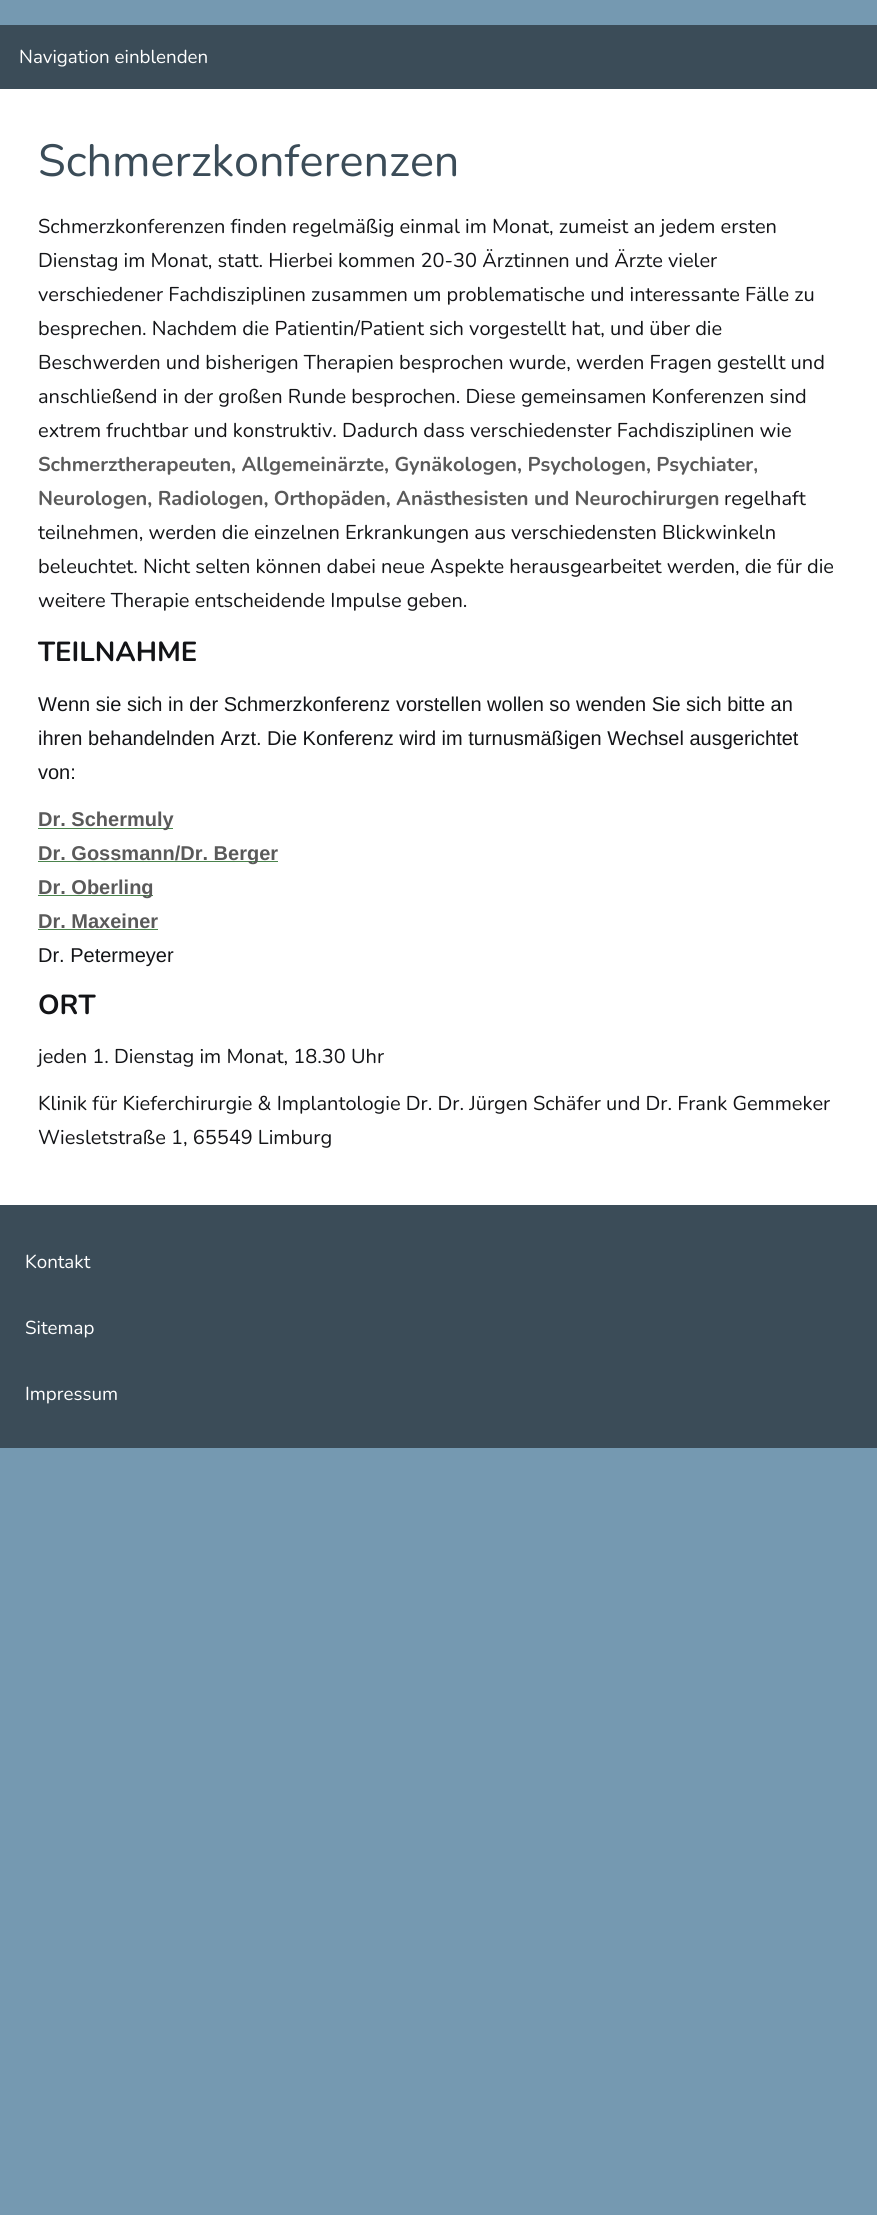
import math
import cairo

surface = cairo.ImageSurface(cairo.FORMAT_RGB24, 877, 2215)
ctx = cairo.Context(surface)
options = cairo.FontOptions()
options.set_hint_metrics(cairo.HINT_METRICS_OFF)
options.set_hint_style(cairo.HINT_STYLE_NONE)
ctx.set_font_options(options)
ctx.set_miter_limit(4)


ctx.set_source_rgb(0.459, 0.6, 0.694)
ctx.paint()
ctx.set_source_rgb(0.231, 0.298, 0.345)
ctx.rectangle(0, 25, 877, 64)
ctx.fill()
ctx.select_font_face("Nunito")
ctx.set_font_size(18.75)
ctx.set_source_rgb(1, 1, 1)
ctx.move_to(19, 63)
ctx.show_text("Navigation einblenden")
ctx.rectangle(0, 89, 877, 1116)
ctx.fill()
ctx.set_font_size(45)
ctx.set_source_rgb(0.231, 0.298, 0.345)
ctx.move_to(38, 176)
ctx.show_text("Schmerzkonferenzen")
ctx.set_font_size(20)
ctx.set_source_rgb(0.075, 0.082, 0.09)
ctx.move_to(38, 233)
ctx.show_text("Schmerzkonferenzen finden regelmäßig einmal im Monat, zumeist an jedem ersten")
ctx.move_to(38, 267)
ctx.show_text("Dienstag im Monat, statt. Hierbei kommen 20-30 Ärztinnen und Ärzte vieler")
ctx.move_to(38, 301)
ctx.show_text("verschiedener Fachdisziplinen zusammen um problematische und interessante Fälle zu")
ctx.move_to(38, 335)
ctx.show_text("besprechen. Nachdem die Patientin/Patient sich vorgestellt hat, und über die")
ctx.move_to(38, 369)
ctx.show_text("Beschwerden und bisherigen Therapien besprochen wurde, werden Fragen gestellt und")
ctx.move_to(38, 403)
ctx.show_text("anschließend in der großen Runde besprochen. Diese gemeinsamen Konferenzen sind")
ctx.move_to(38, 437)
ctx.show_text("extrem fruchtbar und konstruktiv. Dadurch dass verschiedenster Fachdisziplinen wie")
ctx.select_font_face("Nunito", cairo.FONT_SLANT_NORMAL, cairo.FONT_WEIGHT_BOLD)
ctx.set_source_rgb(0.353, 0.353, 0.353)
ctx.move_to(38, 471)
ctx.show_text("Schmerztherapeuten, Allgemeinärzte, Gynäkologen, Psychologen, Psychiater,")
ctx.move_to(38, 505)
ctx.show_text("Neurologen, Radiologen, Orthopäden, Anästhesisten und Neurochirurgen")
ctx.select_font_face("Nunito")
ctx.set_source_rgb(0.075, 0.082, 0.09)
ctx.move_to(724, 505)
ctx.show_text("regelhaft")
ctx.move_to(38, 539)
ctx.show_text("teilnehmen, werden die einzelnen Erkrankungen aus verschiedensten Blickwinkeln")
ctx.move_to(38, 573)
ctx.show_text("beleuchtet. Nicht selten können dabei neue Aspekte herausgearbeitet werden, die für die")
ctx.move_to(38, 607)
ctx.show_text("weitere Therapie entscheidende Impulse geben.")
ctx.select_font_face("Nunito", cairo.FONT_SLANT_NORMAL, cairo.FONT_WEIGHT_BOLD)
ctx.set_font_size(27.5)
ctx.move_to(38, 661)
ctx.show_text("TEILNAHME")
ctx.select_font_face("Liberation Sans")
ctx.set_font_size(20)
ctx.move_to(38, 711)
ctx.show_text("Wenn sie sich in der Schmerzkonferenz vorstellen wollen so wenden Sie sich bitte an")
ctx.move_to(38, 745)
ctx.show_text("ihren behandelnden Arzt. Die Konferenz wird im turnusmäßigen Wechsel ausgerichtet")
ctx.move_to(38, 779)
ctx.show_text("von:")
ctx.set_source_rgb(0.29, 0.514, 0.298)
ctx.rectangle(38, 828, 135, 1)
ctx.fill()
ctx.select_font_face("Liberation Sans", cairo.FONT_SLANT_NORMAL, cairo.FONT_WEIGHT_BOLD)
ctx.set_source_rgb(0.353, 0.353, 0.353)
ctx.move_to(38, 826)
ctx.show_text("Dr. Schermuly")
ctx.set_source_rgb(0.29, 0.514, 0.298)
ctx.rectangle(38, 861, 240, 1)
ctx.fill()
ctx.set_source_rgb(0.353, 0.353, 0.353)
ctx.move_to(38, 860)
ctx.show_text("Dr. Gossmann/Dr. Berger")
ctx.set_source_rgb(0.29, 0.514, 0.298)
ctx.rectangle(38, 895, 115, 1)
ctx.fill()
ctx.set_source_rgb(0.353, 0.353, 0.353)
ctx.move_to(38, 894)
ctx.show_text("Dr. Oberling")
ctx.move_to(38, 928)
ctx.show_text("Dr. Maxeiner")
ctx.set_source_rgb(0.29, 0.514, 0.298)
ctx.rectangle(38, 929, 120, 1)
ctx.fill()
ctx.select_font_face("Liberation Sans")
ctx.set_source_rgb(0.075, 0.082, 0.09)
ctx.move_to(38, 962)
ctx.show_text("Dr. Petermeyer")
ctx.select_font_face("Nunito", cairo.FONT_SLANT_NORMAL, cairo.FONT_WEIGHT_BOLD)
ctx.set_font_size(27.5)
ctx.move_to(38, 1014)
ctx.show_text("ORT")
ctx.select_font_face("Nunito")
ctx.set_font_size(20)
ctx.move_to(38, 1063)
ctx.show_text("jeden 1. Dienstag im Monat, 18.30 Uhr")
ctx.move_to(38, 1110)
ctx.show_text("Klinik für Kieferchirurgie & Implantologie Dr. Dr. Jürgen Schäfer und Dr. Frank Gemmeker")
ctx.move_to(38, 1144)
ctx.show_text("Wiesletstraße 1, 65549 Limburg")
ctx.set_source_rgb(0.231, 0.298, 0.345)
ctx.rectangle(0, 1205, 877, 243)
ctx.fill()
ctx.set_font_size(18.75)
ctx.set_source_rgb(1, 1, 1)
ctx.move_to(25, 1268)
ctx.show_text("Kontakt")
ctx.move_to(25, 1334)
ctx.show_text("Sitemap")
ctx.move_to(25, 1400)
ctx.show_text("Impressum")
surface.write_to_png("page.png")
